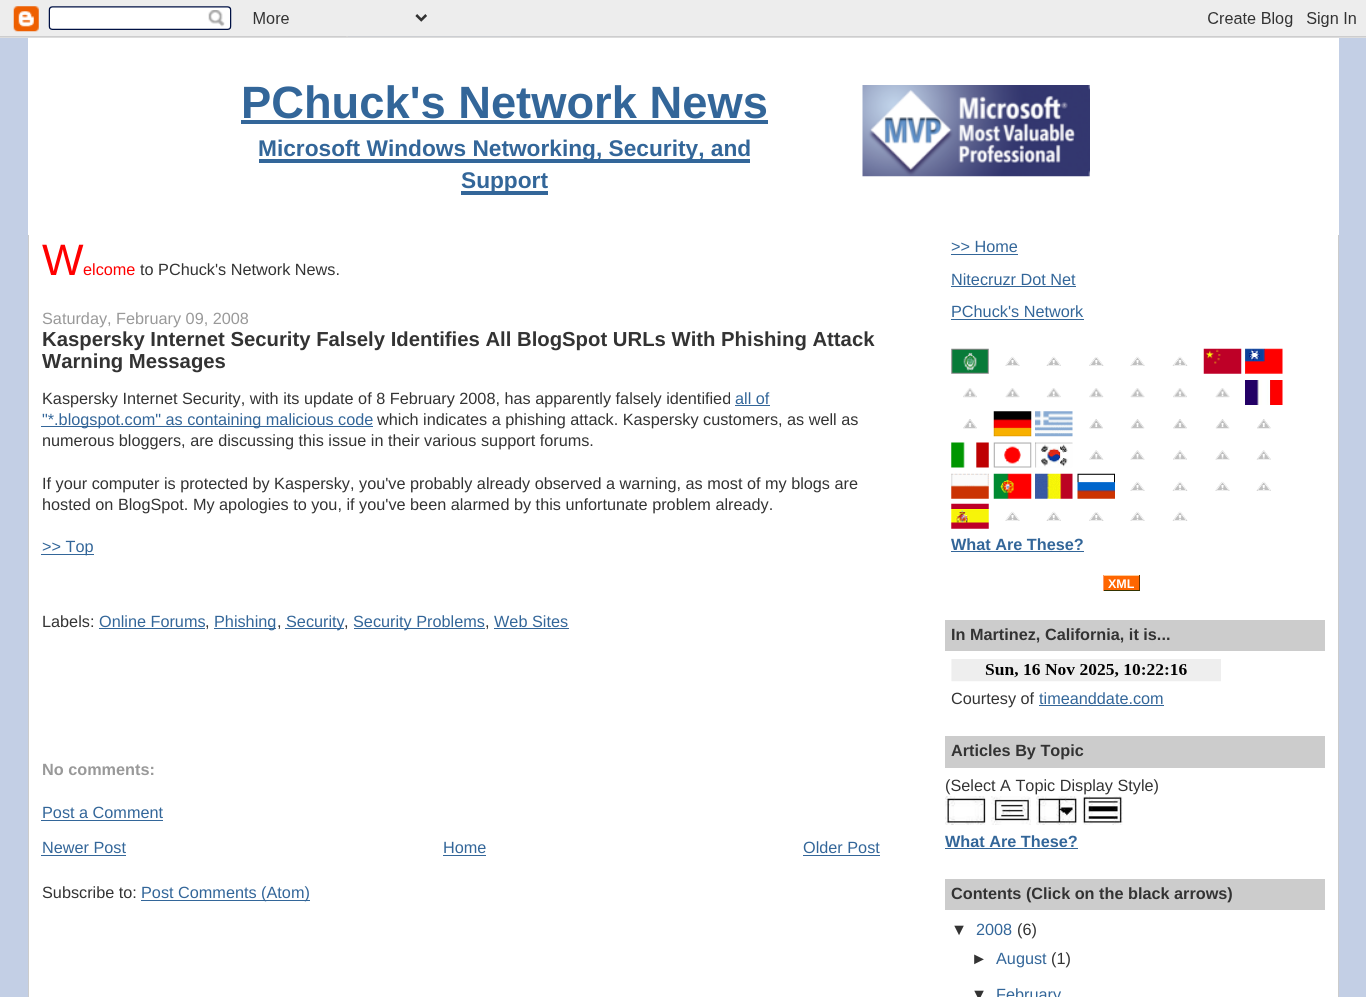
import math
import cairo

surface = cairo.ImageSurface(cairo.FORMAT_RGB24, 1366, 997)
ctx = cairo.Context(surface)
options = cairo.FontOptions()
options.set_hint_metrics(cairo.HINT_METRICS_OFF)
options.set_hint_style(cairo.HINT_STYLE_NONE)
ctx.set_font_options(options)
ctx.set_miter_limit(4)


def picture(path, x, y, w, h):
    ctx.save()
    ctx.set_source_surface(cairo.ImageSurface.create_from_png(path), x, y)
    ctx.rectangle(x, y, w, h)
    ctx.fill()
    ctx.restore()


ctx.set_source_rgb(0.765, 0.812, 0.898)
ctx.paint()
picture("img1.png", 0, 0, 1366, 38)
ctx.set_source_rgb(1, 1, 1)
ctx.rectangle(28, 38, 1311, 197)
ctx.fill()
ctx.select_font_face("Liberation Sans", cairo.FONT_SLANT_NORMAL, cairo.FONT_WEIGHT_BOLD)
ctx.set_font_size(45.3)
ctx.set_source_rgb(0.2, 0.4, 0.6)
ctx.move_to(241, 118)
ctx.show_text("PChuck's Network News")
ctx.rectangle(241, 120, 527, 4)
ctx.fill()
ctx.rectangle(259, 159, 491, 4)
ctx.fill()
ctx.set_font_size(22.7)
ctx.move_to(258, 156)
ctx.show_text("Microsoft Windows Networking, Security, and")
ctx.rectangle(461, 191, 87, 4)
ctx.fill()
ctx.move_to(461, 188)
ctx.show_text("Support")
picture("img2.png", 862, 85, 228, 92)
ctx.set_source_rgb(1, 1, 1)
ctx.rectangle(29, 235, 1309, 762)
ctx.fill()
ctx.set_source_rgb(0.8, 0.8, 0.8)
ctx.rectangle(1338, 235, 1, 762)
ctx.fill()
ctx.rectangle(28, 235, 1, 762)
ctx.fill()
ctx.select_font_face("Liberation Sans")
ctx.set_font_size(44)
ctx.set_source_rgb(1, 0, 0)
ctx.move_to(42, 275)
ctx.show_text("W")
ctx.set_font_size(16.25)
ctx.move_to(83, 275)
ctx.show_text("elcome")
ctx.set_source_rgb(0.2, 0.2, 0.2)
ctx.move_to(140, 275)
ctx.show_text("to PChuck's Network News.")
ctx.set_source_rgb(0.6, 0.6, 0.6)
ctx.move_to(42, 324)
ctx.show_text("Saturday, February 09, 2008")
ctx.select_font_face("Liberation Sans", cairo.FONT_SLANT_NORMAL, cairo.FONT_WEIGHT_BOLD)
ctx.set_font_size(20.3)
ctx.set_source_rgb(0.2, 0.2, 0.2)
ctx.move_to(42, 346)
ctx.show_text("Kaspersky Internet Security Falsely Identifies All BlogSpot URLs With Phishing Attack")
ctx.move_to(42, 368)
ctx.show_text("Warning Messages")
ctx.select_font_face("Liberation Sans")
ctx.set_font_size(16.25)
ctx.move_to(42, 404)
ctx.show_text("Kaspersky Internet Security, with its update of 8 February 2008, has apparently falsely identified")
ctx.set_source_rgb(0.2, 0.4, 0.6)
ctx.move_to(735, 404)
ctx.show_text("all of")
ctx.rectangle(735, 405, 35, 1)
ctx.fill()
ctx.rectangle(41, 426, 332, 1)
ctx.fill()
ctx.move_to(42, 425)
ctx.show_text("\"*.blogspot.com\" as containing malicious code")
ctx.set_source_rgb(0.2, 0.2, 0.2)
ctx.move_to(377, 425)
ctx.show_text("which indicates a phishing attack. Kaspersky customers, as well as")
ctx.move_to(42, 446)
ctx.show_text("numerous bloggers, are discussing this issue in their various support forums.")
ctx.move_to(42, 489)
ctx.show_text("If your computer is protected by Kaspersky, you've probably already observed a warning, as most of my blogs are")
ctx.move_to(42, 510)
ctx.show_text("hosted on BlogSpot. My apologies to you, if you've been alarmed by this unfortunate problem already.")
ctx.set_source_rgb(0.2, 0.4, 0.6)
ctx.rectangle(41, 554, 53, 1)
ctx.fill()
ctx.move_to(42, 552)
ctx.show_text(">> Top")
ctx.set_source_rgb(0.2, 0.2, 0.2)
ctx.move_to(42, 627)
ctx.show_text("Labels:")
ctx.set_source_rgb(0.2, 0.4, 0.6)
ctx.move_to(99, 627)
ctx.show_text("Online Forums")
ctx.set_source_rgb(0.2, 0.2, 0.2)
ctx.move_to(205, 627)
ctx.show_text(",")
ctx.set_source_rgb(0.2, 0.4, 0.6)
ctx.rectangle(99, 628, 106, 1)
ctx.fill()
ctx.rectangle(214, 628, 62, 1)
ctx.fill()
ctx.move_to(214, 627)
ctx.show_text("Phishing")
ctx.set_source_rgb(0.2, 0.2, 0.2)
ctx.move_to(277, 627)
ctx.show_text(",")
ctx.set_source_rgb(0.2, 0.4, 0.6)
ctx.rectangle(285, 628, 59, 1)
ctx.fill()
ctx.move_to(286, 627)
ctx.show_text("Security")
ctx.set_source_rgb(0.2, 0.2, 0.2)
ctx.move_to(344, 627)
ctx.show_text(",")
ctx.set_source_rgb(0.2, 0.4, 0.6)
ctx.rectangle(354, 628, 131, 1)
ctx.fill()
ctx.move_to(353, 627)
ctx.show_text("Security Problems")
ctx.set_source_rgb(0.2, 0.2, 0.2)
ctx.move_to(485, 627)
ctx.show_text(",")
ctx.set_source_rgb(0.2, 0.4, 0.6)
ctx.rectangle(494, 628, 75, 1)
ctx.fill()
ctx.move_to(494, 627)
ctx.show_text("Web Sites")
ctx.select_font_face("Liberation Sans", cairo.FONT_SLANT_NORMAL, cairo.FONT_WEIGHT_BOLD)
ctx.set_source_rgb(0.6, 0.6, 0.6)
ctx.move_to(42, 775)
ctx.show_text("No comments:")
ctx.select_font_face("Liberation Sans")
ctx.set_source_rgb(0.2, 0.4, 0.6)
ctx.move_to(42, 818)
ctx.show_text("Post a Comment")
ctx.rectangle(41, 820, 122, 1)
ctx.fill()
ctx.move_to(42, 853)
ctx.show_text("Newer Post")
ctx.rectangle(41, 855, 85, 1)
ctx.fill()
ctx.move_to(443, 853)
ctx.show_text("Home")
ctx.rectangle(443, 855, 43, 1)
ctx.fill()
ctx.move_to(803, 853)
ctx.show_text("Older Post")
ctx.rectangle(803, 855, 77, 1)
ctx.fill()
ctx.set_source_rgb(0.2, 0.2, 0.2)
ctx.move_to(42, 898)
ctx.show_text("Subscribe to:")
ctx.set_source_rgb(0.2, 0.4, 0.6)
ctx.rectangle(141, 900, 169, 1)
ctx.fill()
ctx.move_to(141, 898)
ctx.show_text("Post Comments (Atom)")
ctx.move_to(951, 252)
ctx.show_text(">> Home")
ctx.rectangle(951, 254, 67, 1)
ctx.fill()
ctx.move_to(951, 285)
ctx.show_text("Nitecruzr Dot Net")
ctx.rectangle(951, 286, 125, 1)
ctx.fill()
ctx.move_to(951, 317)
ctx.show_text("PChuck's Network")
ctx.rectangle(951, 319, 133, 1)
ctx.fill()
picture("img3.png", 951, 348, 38, 26)
picture("img4.png", 1005, 356, 15, 10)
picture("img5.png", 1046, 356, 15, 10)
picture("img6.png", 1089, 357, 15, 9)
picture("img4.png", 1130, 356, 15, 10)
picture("img7.png", 1172, 356, 16, 10)
picture("img8.png", 1203, 348, 39, 26)
picture("img9.png", 1245, 348, 38, 26)
picture("img10.png", 963, 388, 14, 10)
picture("img11.png", 1005, 388, 15, 10)
picture("img12.png", 1046, 388, 15, 10)
picture("img13.png", 1089, 388, 15, 10)
picture("img11.png", 1130, 388, 15, 10)
picture("img14.png", 1173, 388, 14, 10)
picture("img11.png", 1215, 388, 15, 10)
picture("img15.png", 1245, 380, 38, 25)
picture("img16.png", 963, 419, 14, 10)
picture("img17.png", 993, 411, 39, 26)
picture("img18.png", 1035, 411, 38, 26)
picture("img19.png", 1089, 419, 14, 10)
picture("img20.png", 1130, 419, 15, 10)
picture("img21.png", 1173, 419, 14, 10)
picture("img20.png", 1215, 419, 15, 10)
picture("img22.png", 1257, 419, 14, 10)
picture("img23.png", 951, 442, 38, 26)
picture("img24.png", 993, 442, 39, 26)
picture("img25.png", 1035, 442, 38, 26)
picture("img26.png", 1089, 450, 15, 10)
picture("img27.png", 1130, 450, 15, 10)
picture("img28.png", 1173, 450, 14, 10)
picture("img27.png", 1215, 450, 15, 10)
picture("img29.png", 1256, 450, 15, 10)
picture("img30.png", 951, 473, 38, 26)
picture("img31.png", 993, 473, 39, 26)
picture("img32.png", 1035, 473, 38, 26)
picture("img33.png", 1077, 473, 38, 26)
picture("img4.png", 1130, 481, 15, 10)
picture("img7.png", 1172, 481, 16, 10)
picture("img4.png", 1215, 481, 15, 10)
picture("img34.png", 1256, 481, 15, 10)
picture("img35.png", 951, 503, 38, 26)
picture("img4.png", 1005, 511, 15, 10)
picture("img5.png", 1046, 511, 15, 10)
picture("img6.png", 1089, 512, 15, 9)
picture("img4.png", 1130, 511, 15, 10)
picture("img7.png", 1172, 511, 16, 10)
ctx.select_font_face("Liberation Sans", cairo.FONT_SLANT_NORMAL, cairo.FONT_WEIGHT_BOLD)
ctx.move_to(951, 550)
ctx.show_text("What Are These?")
ctx.rectangle(951, 551, 133, 1)
ctx.fill()
ctx.set_source_rgb(1, 0.4, 0)
ctx.rectangle(1104, 576, 35, 14)
ctx.fill()
ctx.set_font_size(12.5)
ctx.set_source_rgb(1, 1, 1)
ctx.move_to(1108, 588)
ctx.show_text("XML")
ctx.set_source_rgb(1, 0.8, 0.6)
ctx.rectangle(1103, 575, 37, 1)
ctx.fill()
ctx.set_source_rgb(0.4, 0.2, 0)
ctx.rectangle(1139, 575, 1, 16)
ctx.fill()
ctx.set_source_rgb(0.2, 0.2, 0)
ctx.rectangle(1103, 590, 37, 1)
ctx.fill()
ctx.set_source_rgb(1, 0.6, 0.4)
ctx.rectangle(1103, 575, 1, 16)
ctx.fill()
ctx.set_source_rgb(0.8, 0.8, 0.8)
ctx.rectangle(945, 620, 380, 31)
ctx.fill()
ctx.set_font_size(16.25)
ctx.set_source_rgb(0.2, 0.2, 0.2)
ctx.move_to(951, 640)
ctx.show_text("In Martinez, California, it is...")
picture("img36.png", 951, 659, 270, 23)
ctx.select_font_face("Liberation Sans")
ctx.move_to(951, 704)
ctx.show_text("Courtesy of")
ctx.set_source_rgb(0.2, 0.4, 0.6)
ctx.move_to(1039, 704)
ctx.show_text("timeanddate.com")
ctx.rectangle(1039, 705, 125, 1)
ctx.fill()
ctx.set_source_rgb(0.8, 0.8, 0.8)
ctx.rectangle(945, 736, 380, 32)
ctx.fill()
ctx.select_font_face("Liberation Sans", cairo.FONT_SLANT_NORMAL, cairo.FONT_WEIGHT_BOLD)
ctx.set_source_rgb(0.2, 0.2, 0.2)
ctx.move_to(951, 756)
ctx.show_text("Articles By Topic")
ctx.select_font_face("Liberation Sans")
ctx.move_to(945, 791)
ctx.show_text("(Select A Topic Display Style)")
picture("img37.png", 945, 796, 41, 29)
picture("img38.png", 991, 796, 40, 29)
picture("img39.png", 1036, 796, 41, 29)
picture("img40.png", 1082, 796, 41, 29)
ctx.select_font_face("Liberation Sans", cairo.FONT_SLANT_NORMAL, cairo.FONT_WEIGHT_BOLD)
ctx.set_source_rgb(0.2, 0.4, 0.6)
ctx.move_to(945, 847)
ctx.show_text("What Are These?")
ctx.rectangle(945, 848, 133, 1)
ctx.fill()
ctx.set_source_rgb(0.8, 0.8, 0.8)
ctx.rectangle(945, 879, 380, 31)
ctx.fill()
ctx.set_source_rgb(0.2, 0.2, 0.2)
ctx.move_to(951, 899)
ctx.show_text("Contents (Click on the black arrows)")
ctx.select_font_face("Liberation Sans")
ctx.move_to(951, 935)
ctx.show_text("▼")
ctx.set_source_rgb(0.2, 0.4, 0.6)
ctx.move_to(976, 935)
ctx.show_text("2008")
ctx.set_source_rgb(0.2, 0.2, 0.2)
ctx.move_to(1017, 935)
ctx.show_text("(6)")
ctx.move_to(971, 964)
ctx.show_text("►")
ctx.set_source_rgb(0.2, 0.4, 0.6)
ctx.move_to(996, 964)
ctx.show_text("August")
ctx.set_source_rgb(0.2, 0.2, 0.2)
ctx.move_to(1051, 964)
ctx.show_text("(1)")
ctx.move_to(971, 1000)
ctx.show_text("▼")
ctx.set_source_rgb(0.2, 0.4, 0.6)
ctx.move_to(996, 1000)
ctx.show_text("February")
surface.write_to_png("page.png")
